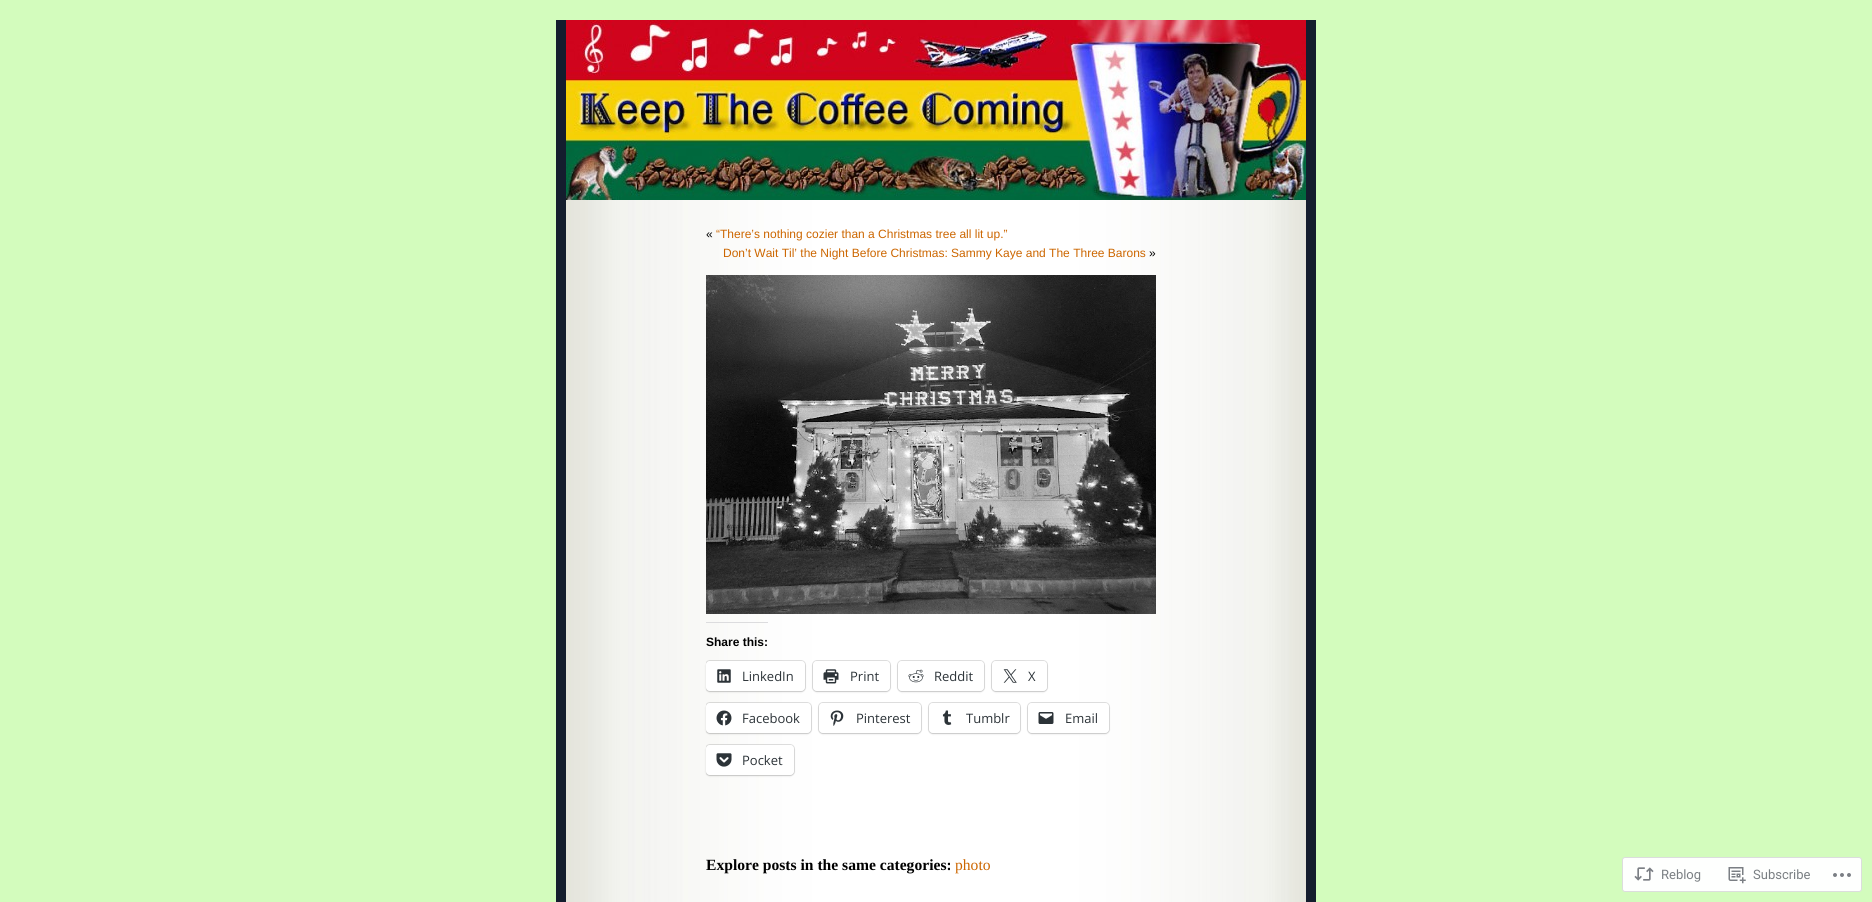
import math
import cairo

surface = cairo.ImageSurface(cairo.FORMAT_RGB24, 1872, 902)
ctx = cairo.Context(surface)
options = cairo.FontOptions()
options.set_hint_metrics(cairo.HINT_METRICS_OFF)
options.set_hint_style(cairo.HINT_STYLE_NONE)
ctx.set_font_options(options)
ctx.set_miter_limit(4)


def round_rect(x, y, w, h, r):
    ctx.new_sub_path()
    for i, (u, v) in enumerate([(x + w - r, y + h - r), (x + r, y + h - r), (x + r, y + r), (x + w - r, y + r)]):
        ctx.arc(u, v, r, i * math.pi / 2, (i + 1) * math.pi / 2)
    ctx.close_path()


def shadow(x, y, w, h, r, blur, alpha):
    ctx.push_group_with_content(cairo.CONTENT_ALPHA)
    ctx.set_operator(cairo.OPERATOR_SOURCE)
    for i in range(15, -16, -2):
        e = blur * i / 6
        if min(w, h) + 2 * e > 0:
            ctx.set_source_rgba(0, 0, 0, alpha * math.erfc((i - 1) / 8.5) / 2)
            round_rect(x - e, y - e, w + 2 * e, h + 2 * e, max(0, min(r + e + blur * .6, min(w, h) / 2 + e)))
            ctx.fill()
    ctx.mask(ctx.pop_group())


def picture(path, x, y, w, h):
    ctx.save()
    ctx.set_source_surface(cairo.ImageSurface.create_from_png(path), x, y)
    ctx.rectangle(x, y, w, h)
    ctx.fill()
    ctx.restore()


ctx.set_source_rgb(0.827, 0.988, 0.741)
ctx.paint()
picture("img1.png", 556, 20, 760, 882)
picture("img2.png", 566, 20, 740, 180)
ctx.select_font_face("Liberation Sans")
ctx.set_font_size(12)
ctx.set_source_rgb(0, 0, 0)
ctx.move_to(706, 238)
ctx.show_text("«")
ctx.set_source_rgb(0.8, 0.4, 0)
ctx.move_to(716, 238)
ctx.show_text("“There’s nothing cozier than a Christmas tree all lit up.”")
ctx.move_to(723, 257)
ctx.show_text("Don’t Wait Til’ the Night Before Christmas: Sammy Kaye and The Three Barons")
ctx.set_source_rgb(0, 0, 0)
ctx.move_to(1149, 257)
ctx.show_text("»")
picture("img3.png", 706, 275, 450, 339)
ctx.set_source_rgb(0.863, 0.863, 0.871)
ctx.rectangle(706, 622, 62, 1)
ctx.fill()
ctx.select_font_face("Liberation Sans", cairo.FONT_SLANT_NORMAL, cairo.FONT_WEIGHT_BOLD)
ctx.set_source_rgb(0, 0, 0)
ctx.move_to(706, 646)
ctx.show_text("Share this:")
ctx.save()
ctx.rectangle(706, 205, 450, 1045)
ctx.clip()
round_rect(705.5, 660.5, 100, 31, 4.5)
ctx.set_source_rgba(0, 0, 0, 0.12)
ctx.set_line_width(1)
ctx.stroke()
ctx.restore()
ctx.set_source_rgb(0, 0, 0)
shadow(706, 662, 99, 30, 4, 1, 0.12)
ctx.set_source_rgb(1, 1, 1)
round_rect(706, 661, 99, 30, 4)
ctx.fill()
picture("img4.png", 717, 669, 14, 14)
ctx.select_font_face("Open Sans")
ctx.set_font_size(13)
ctx.set_source_rgb(0.173, 0.2, 0.22)
ctx.move_to(742, 681)
ctx.show_text("LinkedIn")
round_rect(812.5, 660.5, 78, 31, 4.5)
ctx.set_source_rgb(0.878, 0.878, 0.878)
ctx.set_line_width(1)
ctx.stroke()
ctx.set_source_rgb(0, 0, 0)
shadow(813, 662, 77, 30, 4, 1, 0.12)
ctx.set_source_rgb(1, 1, 1)
round_rect(813, 661, 77, 30, 4)
ctx.fill()
picture("img5.png", 823, 669, 16, 15)
ctx.set_source_rgb(0.173, 0.2, 0.22)
ctx.move_to(850, 681)
ctx.show_text("Print")
round_rect(897.5, 660.5, 87, 31, 4.5)
ctx.set_source_rgb(0.878, 0.878, 0.878)
ctx.stroke()
ctx.set_source_rgb(0, 0, 0)
shadow(898, 662, 86, 30, 4, 1, 0.12)
ctx.set_source_rgb(1, 1, 1)
round_rect(898, 661, 86, 30, 4)
ctx.fill()
picture("img6.png", 908, 669, 16, 14)
ctx.set_source_rgb(0.173, 0.2, 0.22)
ctx.move_to(934, 681)
ctx.show_text("Reddit")
round_rect(991.5, 660.5, 56, 31, 4.5)
ctx.set_source_rgb(0.878, 0.878, 0.878)
ctx.stroke()
ctx.set_source_rgb(0, 0, 0)
shadow(992, 662, 55, 30, 4, 1, 0.12)
ctx.set_source_rgb(1, 1, 1)
round_rect(992, 661, 55, 30, 4)
ctx.fill()
picture("img7.png", 1003, 669, 14, 14)
ctx.set_source_rgb(0.173, 0.2, 0.22)
ctx.move_to(1028, 681)
ctx.show_text("X")
ctx.save()
ctx.rectangle(706, 205, 450, 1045)
ctx.clip()
round_rect(705.5, 702.5, 106, 31, 4.5)
ctx.set_source_rgba(0, 0, 0, 0.12)
ctx.stroke()
ctx.restore()
ctx.set_source_rgb(0, 0, 0)
shadow(706, 704, 105, 30, 4, 1, 0.12)
ctx.set_source_rgb(1, 1, 1)
round_rect(706, 703, 105, 30, 4)
ctx.fill()
picture("img8.png", 716, 710, 16, 16)
ctx.set_source_rgb(0.173, 0.2, 0.22)
ctx.move_to(742, 723)
ctx.show_text("Facebook")
round_rect(818.5, 702.5, 103, 31, 4.5)
ctx.set_source_rgb(0.878, 0.878, 0.878)
ctx.stroke()
ctx.set_source_rgb(0, 0, 0)
shadow(819, 704, 102, 30, 4, 1, 0.12)
ctx.set_source_rgb(1, 1, 1)
round_rect(819, 703, 102, 30, 4)
ctx.fill()
picture("img9.png", 830, 710, 14, 16)
ctx.set_source_rgb(0.173, 0.2, 0.22)
ctx.move_to(856, 723)
ctx.show_text("Pinterest")
round_rect(928.5, 702.5, 92, 31, 4.5)
ctx.set_source_rgb(0.878, 0.878, 0.878)
ctx.stroke()
ctx.set_source_rgb(0, 0, 0)
shadow(929, 704, 91, 30, 4, 1, 0.12)
ctx.set_source_rgb(1, 1, 1)
round_rect(929, 703, 91, 30, 4)
ctx.fill()
picture("img10.png", 942, 710, 10, 15)
ctx.set_source_rgb(0.173, 0.2, 0.22)
ctx.move_to(966, 723)
ctx.show_text("Tumblr")
round_rect(1027.5, 702.5, 82, 31, 4.5)
ctx.set_source_rgb(0.878, 0.878, 0.878)
ctx.stroke()
ctx.set_source_rgb(0, 0, 0)
shadow(1028, 704, 81, 30, 4, 1, 0.12)
ctx.set_source_rgb(1, 1, 1)
round_rect(1028, 703, 81, 30, 4)
ctx.fill()
picture("img11.png", 1038, 712, 16, 12)
ctx.set_source_rgb(0.173, 0.2, 0.22)
ctx.move_to(1065, 723)
ctx.show_text("Email")
ctx.save()
ctx.rectangle(706, 205, 450, 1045)
ctx.clip()
round_rect(705.5, 744.5, 89, 31, 4.5)
ctx.set_source_rgba(0, 0, 0, 0.12)
ctx.stroke()
ctx.restore()
ctx.set_source_rgb(0, 0, 0)
shadow(706, 746, 88, 30, 4, 1, 0.12)
ctx.set_source_rgb(1, 1, 1)
round_rect(706, 745, 88, 30, 4)
ctx.fill()
picture("img12.png", 716, 753, 16, 14)
ctx.set_source_rgb(0.173, 0.2, 0.22)
ctx.move_to(742, 765)
ctx.show_text("Pocket")
ctx.select_font_face("Liberation Serif", cairo.FONT_SLANT_NORMAL, cairo.FONT_WEIGHT_BOLD)
ctx.set_font_size(15.6)
ctx.set_source_rgb(0, 0, 0)
ctx.move_to(706, 870)
ctx.show_text("Explore posts in the same categories:")
ctx.select_font_face("Liberation Serif")
ctx.set_source_rgb(0.8, 0.4, 0)
ctx.move_to(955, 870)
ctx.show_text("photo")
ctx.set_source_rgb(0.996, 1, 0.996)
round_rect(1622.5, 857.5, 239, 34, 2.5)
ctx.fill_preserve()
ctx.set_source_rgb(0.863, 0.867, 0.867)
ctx.stroke()
picture("img13.png", 1634, 867, 20, 14)
ctx.select_font_face("Roboto")
ctx.set_font_size(13)
ctx.set_source_rgb(0.478, 0.498, 0.514)
ctx.move_to(1661, 879)
ctx.show_text("Reblog")
picture("img14.png", 1728, 867, 18, 17)
ctx.move_to(1753, 879)
ctx.show_text("Subscribe")
picture("img15.png", 1833, 873, 18, 4)
surface.write_to_png("page.png")
